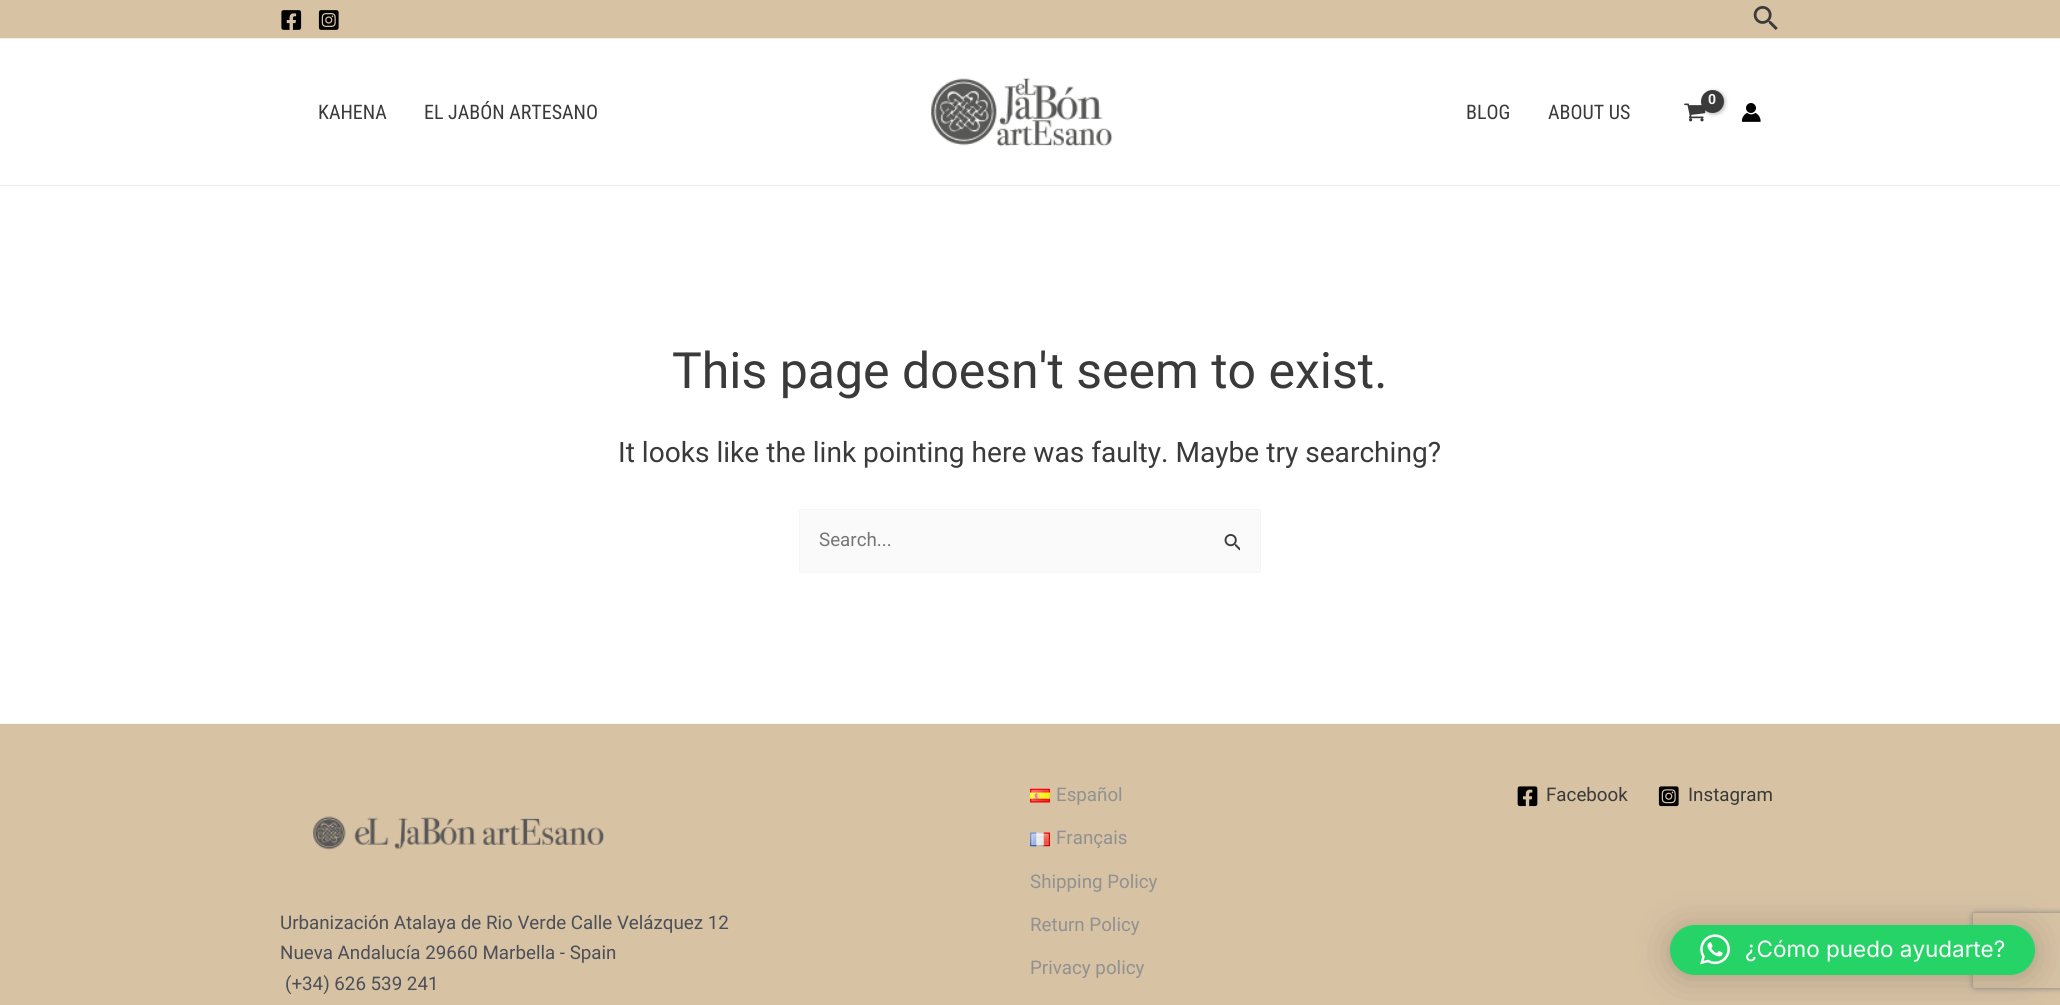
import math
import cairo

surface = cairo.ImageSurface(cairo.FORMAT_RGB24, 2060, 1005)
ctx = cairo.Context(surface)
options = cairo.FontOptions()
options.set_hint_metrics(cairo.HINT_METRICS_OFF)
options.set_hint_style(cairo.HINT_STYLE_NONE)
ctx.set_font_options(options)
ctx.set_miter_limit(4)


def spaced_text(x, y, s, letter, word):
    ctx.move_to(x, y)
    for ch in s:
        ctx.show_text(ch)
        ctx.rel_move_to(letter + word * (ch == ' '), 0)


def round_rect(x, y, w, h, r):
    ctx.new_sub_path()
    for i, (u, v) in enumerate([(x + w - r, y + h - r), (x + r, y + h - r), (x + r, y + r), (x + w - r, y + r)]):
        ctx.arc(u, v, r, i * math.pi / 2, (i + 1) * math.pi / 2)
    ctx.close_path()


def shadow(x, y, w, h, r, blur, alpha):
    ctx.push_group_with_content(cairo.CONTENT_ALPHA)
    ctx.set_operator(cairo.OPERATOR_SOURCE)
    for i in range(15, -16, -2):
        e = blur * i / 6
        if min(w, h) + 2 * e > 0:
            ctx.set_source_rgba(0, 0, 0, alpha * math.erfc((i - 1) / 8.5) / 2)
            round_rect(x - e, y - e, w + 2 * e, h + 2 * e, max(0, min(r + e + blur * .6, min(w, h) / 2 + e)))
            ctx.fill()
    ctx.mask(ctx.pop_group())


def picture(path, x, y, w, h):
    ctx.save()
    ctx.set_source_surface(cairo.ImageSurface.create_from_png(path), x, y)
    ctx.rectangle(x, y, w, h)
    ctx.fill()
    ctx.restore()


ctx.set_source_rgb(1, 1, 1)
ctx.paint()
ctx.set_source_rgb(0.843, 0.761, 0.643)
ctx.rectangle(0, 0, 2060, 38)
ctx.fill()
ctx.set_source_rgb(0.918, 0.918, 0.918)
ctx.rectangle(0, 38, 2060, 1)
ctx.fill()
picture("img1.png", 281, 10, 21, 20)
picture("img2.png", 318, 10, 21, 20)
picture("img3.png", 1753, 6, 25, 24)
ctx.rectangle(0, 185, 2060, 1)
ctx.fill()
ctx.select_font_face("Roboto Condensed")
ctx.set_font_size(20)
ctx.set_source_rgb(0.227, 0.227, 0.227)
ctx.move_to(318, 119)
ctx.show_text("KAHENA")
ctx.move_to(424, 119)
ctx.show_text("EL JABÓN ARTESANO")
picture("img4.png", 931, 77, 182, 70)
picture("img5.png", 1684, 103, 22, 19)
ctx.set_source_rgb(0, 0, 0)
shadow(1703, 91, 22, 23, 11, 2, 0.3)
ctx.set_source_rgb(0.227, 0.227, 0.227)
ctx.arc(1712.5, 101.5, 11.5, 0, 2 * math.pi)
ctx.fill()
ctx.select_font_face("Roboto", cairo.FONT_SLANT_NORMAL, cairo.FONT_WEIGHT_BOLD)
ctx.set_font_size(14)
ctx.set_source_rgb(0.961, 0.961, 0.961)
spaced_text(1708, 104, "0", -1, 0)
ctx.select_font_face("Roboto Condensed")
ctx.set_font_size(20)
ctx.set_source_rgb(0.227, 0.227, 0.227)
ctx.move_to(1466, 119)
ctx.show_text("BLOG")
ctx.move_to(1548, 119)
ctx.show_text("ABOUT US")
picture("img6.png", 1741, 103, 20, 19)
ctx.select_font_face("Roboto")
ctx.set_font_size(50)
ctx.move_to(672, 388)
ctx.show_text("This page doesn't seem to exist.")
ctx.set_font_size(28.1)
ctx.move_to(618, 462)
ctx.show_text("It looks like the link pointing here was faulty. Maybe try searching?")
ctx.set_source_rgb(0.98, 0.98, 0.98)
round_rect(799.5, 509.5, 461, 63, 2)
ctx.fill_preserve()
ctx.set_source_rgb(0.949, 0.961, 0.969)
ctx.set_line_width(1)
ctx.stroke()
ctx.set_font_size(18.75)
ctx.set_source_rgb(0.459, 0.459, 0.459)
ctx.move_to(819, 546)
ctx.show_text("Search...")
picture("img7.png", 1224, 534, 16, 17)
ctx.set_source_rgb(0.843, 0.761, 0.643)
ctx.rectangle(0, 724, 2060, 281)
ctx.fill()
ctx.set_source_rgb(0.949, 0.961, 0.969)
ctx.rectangle(0, 723, 2060, 1)
ctx.fill()
picture("img8.png", 1030, 788, 20, 15)
ctx.set_source_rgb(0.569, 0.569, 0.569)
ctx.move_to(1056, 801)
ctx.show_text("Español")
picture("img9.png", 1030, 832, 20, 15)
ctx.move_to(1056, 844)
ctx.show_text("Français")
ctx.move_to(1030, 888)
ctx.show_text("Shipping Policy")
ctx.move_to(1030, 931)
ctx.show_text("Return Policy")
ctx.move_to(1030, 974)
ctx.show_text("Privacy policy")
picture("img10.png", 1517, 786, 21, 21)
ctx.set_source_rgb(0.227, 0.227, 0.227)
ctx.move_to(1546, 801)
ctx.show_text("Facebook")
picture("img11.png", 1658, 786, 21, 21)
ctx.move_to(1688, 801)
ctx.show_text("Instagram")
picture("img12.png", 313, 816, 292, 34)
ctx.set_source_rgb(0.294, 0.31, 0.345)
ctx.move_to(280, 929)
ctx.show_text("Urbanización Atalaya de Rio Verde Calle Velázquez 12")
ctx.move_to(280, 959)
ctx.show_text("Nueva Andalucía 29660 Marbella - Spain")
ctx.move_to(285, 990)
ctx.show_text("(+34) 626 539 241")
ctx.set_source_rgb(0, 0, 0)
shadow(1670, 928, 365, 50, 25, 20, 0.16)
shadow(1670, 926, 365, 50, 25, 4, 0.06)
ctx.save()
ctx.set_fill_rule(cairo.FILL_RULE_EVEN_ODD)
ctx.new_path()
ctx.move_to(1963, 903)
ctx.line_to(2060, 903)
ctx.line_to(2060, 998)
ctx.line_to(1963, 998)
ctx.close_path()
ctx.move_to(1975.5, 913)
ctx.line_to(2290.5, 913)
ctx.curve_to(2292, 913, 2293, 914, 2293, 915.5)
ctx.line_to(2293, 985.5)
ctx.curve_to(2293, 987, 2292, 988, 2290.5, 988)
ctx.line_to(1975.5, 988)
ctx.curve_to(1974, 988, 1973, 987, 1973, 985.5)
ctx.line_to(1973, 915.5)
ctx.curve_to(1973, 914, 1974, 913, 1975.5, 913)
ctx.close_path()
ctx.clip()
ctx.set_source_rgb(0.502, 0.502, 0.502)
shadow(1973, 913, 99, 75, 2.5, 3, 1)
ctx.restore()
ctx.set_source_rgb(0.145, 0.827, 0.4)
round_rect(1670, 925, 365, 50, 25)
ctx.fill()
picture("img13.png", 1700, 934, 30, 31)
ctx.select_font_face("Inter")
ctx.set_font_size(22.5)
ctx.set_source_rgb(1, 1, 1)
ctx.move_to(1745, 957)
ctx.show_text("¿Cómo puedo ayudarte?")
surface.write_to_png("page.png")
